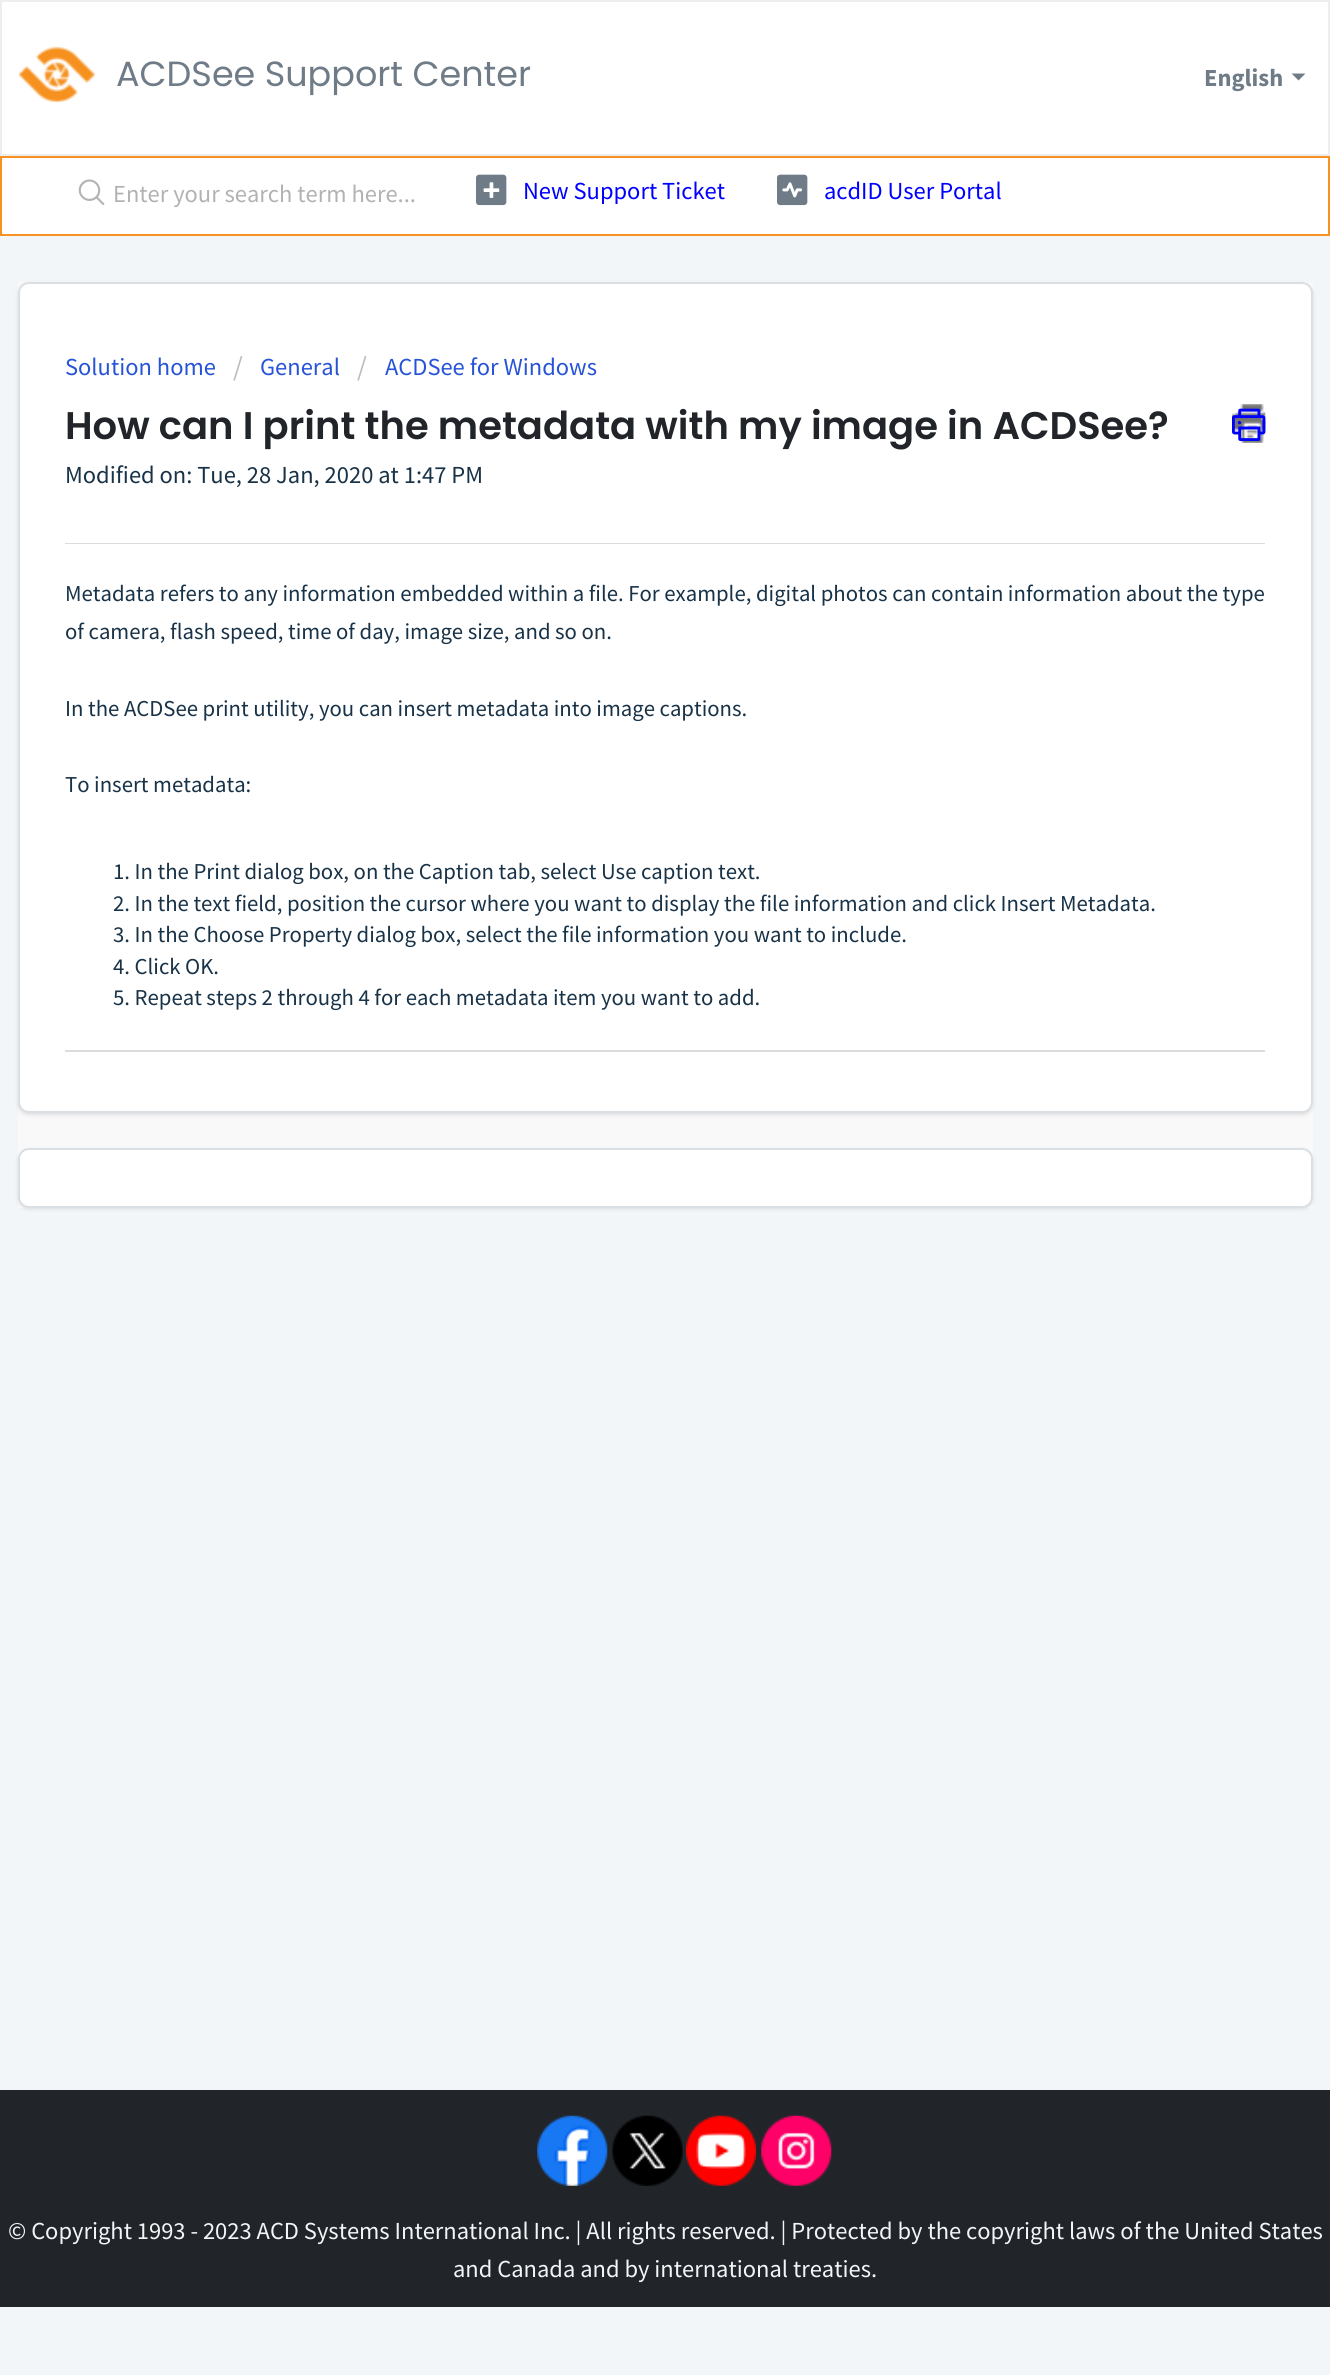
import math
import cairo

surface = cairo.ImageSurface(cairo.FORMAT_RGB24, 1330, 2375)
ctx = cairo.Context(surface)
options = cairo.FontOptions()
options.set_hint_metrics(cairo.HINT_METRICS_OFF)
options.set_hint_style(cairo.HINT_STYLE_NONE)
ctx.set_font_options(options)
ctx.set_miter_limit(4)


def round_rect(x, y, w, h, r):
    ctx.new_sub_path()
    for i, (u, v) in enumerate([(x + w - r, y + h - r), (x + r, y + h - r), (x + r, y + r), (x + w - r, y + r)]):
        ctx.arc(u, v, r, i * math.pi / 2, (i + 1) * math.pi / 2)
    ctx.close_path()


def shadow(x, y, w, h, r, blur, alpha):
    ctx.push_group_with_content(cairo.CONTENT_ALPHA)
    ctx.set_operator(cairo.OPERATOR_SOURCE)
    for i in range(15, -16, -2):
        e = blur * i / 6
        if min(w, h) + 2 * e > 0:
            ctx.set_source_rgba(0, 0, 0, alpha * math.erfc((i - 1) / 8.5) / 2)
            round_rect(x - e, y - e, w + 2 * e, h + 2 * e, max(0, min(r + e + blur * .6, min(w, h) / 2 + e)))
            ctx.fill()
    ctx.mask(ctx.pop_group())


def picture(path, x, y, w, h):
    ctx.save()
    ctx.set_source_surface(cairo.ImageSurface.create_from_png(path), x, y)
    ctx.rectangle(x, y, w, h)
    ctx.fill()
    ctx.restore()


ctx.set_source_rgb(0.953, 0.961, 0.969)
ctx.paint()
ctx.set_source_rgb(1, 1, 1)
ctx.rectangle(1, 1, 1328, 154)
ctx.fill_preserve()
ctx.set_source_rgb(0.922, 0.933, 0.941)
ctx.stroke()
picture("img1.png", 18, 46, 78, 57)
ctx.select_font_face("Poppins")
ctx.set_font_size(35)
ctx.set_source_rgb(0.435, 0.486, 0.529)
ctx.move_to(116, 86)
ctx.show_text("ACDSee Support Center")
ctx.select_font_face("Source Sans Pro", cairo.FONT_SLANT_NORMAL, cairo.FONT_WEIGHT_BOLD)
ctx.set_font_size(24.5)
ctx.move_to(1204, 86)
ctx.show_text("English")
ctx.new_path()
ctx.move_to(1291.5, 73.5)
ctx.line_to(1305.5, 73.5)
ctx.line_to(1298.5, 80.5)
ctx.close_path()
ctx.fill()
ctx.set_source_rgb(1, 1, 1)
ctx.rectangle(1, 157, 1328, 78)
ctx.fill_preserve()
ctx.set_source_rgb(0.965, 0.569, 0.125)
ctx.stroke()
picture("img2.png", 78, 179, 27, 26)
ctx.select_font_face("Source Sans Pro")
ctx.set_source_rgb(0.698, 0.698, 0.698)
ctx.move_to(113, 202)
ctx.show_text("Enter your search term here...")
picture("img3.png", 476, 174, 31, 32)
ctx.set_source_rgb(0, 0, 1)
ctx.move_to(523, 199)
ctx.show_text("New Support Ticket")
picture("img4.png", 777, 174, 31, 32)
ctx.move_to(824, 199)
ctx.show_text("acdID User Portal")
ctx.set_source_rgb(0.973, 0.976, 0.98)
ctx.rectangle(18, 282, 1295, 926)
ctx.fill()
ctx.set_source_rgb(0.247, 0.247, 0.267)
shadow(18, 284, 1295, 831, 11, 2, 0.15)
ctx.set_source_rgb(1, 1, 1)
round_rect(19, 283, 1293, 829, 10)
ctx.fill_preserve()
ctx.set_source_rgb(0.855, 0.875, 0.89)
ctx.stroke()
ctx.set_source_rgb(0.153, 0.325, 0.843)
ctx.move_to(65, 375)
ctx.show_text("Solution home")
ctx.set_font_size(28)
ctx.set_source_rgb(0.733, 0.733, 0.733)
ctx.move_to(233, 376)
ctx.show_text("/")
ctx.set_font_size(24.5)
ctx.set_source_rgb(0.153, 0.325, 0.843)
ctx.move_to(260, 375)
ctx.show_text("General")
ctx.set_font_size(28)
ctx.set_source_rgb(0.733, 0.733, 0.733)
ctx.move_to(357, 376)
ctx.show_text("/")
ctx.set_font_size(24.5)
ctx.set_source_rgb(0.153, 0.325, 0.843)
ctx.move_to(385, 375)
ctx.show_text("ACDSee for Windows")
ctx.select_font_face("Poppins SemiBold")
ctx.set_font_size(38.5)
ctx.set_source_rgb(0.129, 0.145, 0.161)
ctx.move_to(65, 439)
ctx.show_text("How can I print the metadata with my image in ACDSee?")
picture("img5.png", 1232, 404, 34, 39)
picture("img6.png", 1232, 408, 34, 33)
ctx.select_font_face("Source Sans Pro")
ctx.set_font_size(24.5)
ctx.set_source_rgb(0.094, 0.196, 0.278)
ctx.move_to(65, 483)
ctx.show_text("Modified on: Tue, 28 Jan, 2020 at 1:47 PM")
ctx.set_source_rgb(0.863, 0.863, 0.863)
ctx.rectangle(65, 543, 1200, 1)
ctx.fill()
ctx.set_font_size(22.75)
ctx.set_source_rgb(0.094, 0.196, 0.278)
ctx.move_to(65, 601)
ctx.show_text("Metadata refers to any information embedded within a file. For example, digital photos can contain information about the type")
ctx.move_to(65, 639)
ctx.show_text("of camera, flash speed, time of day, image size, and so on.")
ctx.move_to(65, 716)
ctx.show_text("In the ACDSee print utility, you can insert metadata into image captions.")
ctx.move_to(65, 792)
ctx.show_text("To insert metadata:")
ctx.move_to(113, 879)
ctx.show_text("1. In the Print dialog box, on the Caption tab, select Use caption text.")
ctx.move_to(113, 911)
ctx.show_text("2. In the text field, position the cursor where you want to display the file information and click Insert Metadata.")
ctx.move_to(113, 942)
ctx.show_text("3. In the Choose Property dialog box, select the file information you want to include.")
ctx.move_to(113, 974)
ctx.show_text("4. Click OK.")
ctx.move_to(113, 1005)
ctx.show_text("5. Repeat steps 2 through 4 for each metadata item you want to add.")
ctx.set_source_rgb(0.863, 0.863, 0.863)
ctx.rectangle(65, 1050, 1200, 2)
ctx.fill()
ctx.set_source_rgb(0.247, 0.247, 0.267)
shadow(18, 1150, 1295, 59, 11, 2, 0.15)
ctx.set_source_rgb(1, 1, 1)
round_rect(19, 1149, 1293, 58, 10)
ctx.fill_preserve()
ctx.set_source_rgb(0.855, 0.875, 0.89)
ctx.stroke()
ctx.set_source_rgb(0.129, 0.145, 0.161)
ctx.rectangle(0, 2090, 1330, 217)
ctx.fill()
picture("img7.png", 537, 2115, 71, 71)
picture("img8.png", 612, 2115, 71, 71)
picture("img9.png", 686, 2115, 70, 71)
picture("img10.png", 761, 2115, 71, 71)
ctx.set_font_size(24.5)
ctx.set_source_rgb(0.953, 0.961, 0.969)
ctx.move_to(8, 2239)
ctx.show_text("© Copyright 1993 - 2023 ACD Systems International Inc. | All rights reserved. | Protected by the copyright laws of the United States")
ctx.move_to(453, 2277)
ctx.show_text("and Canada and by international treaties.")
surface.write_to_png("page.png")
